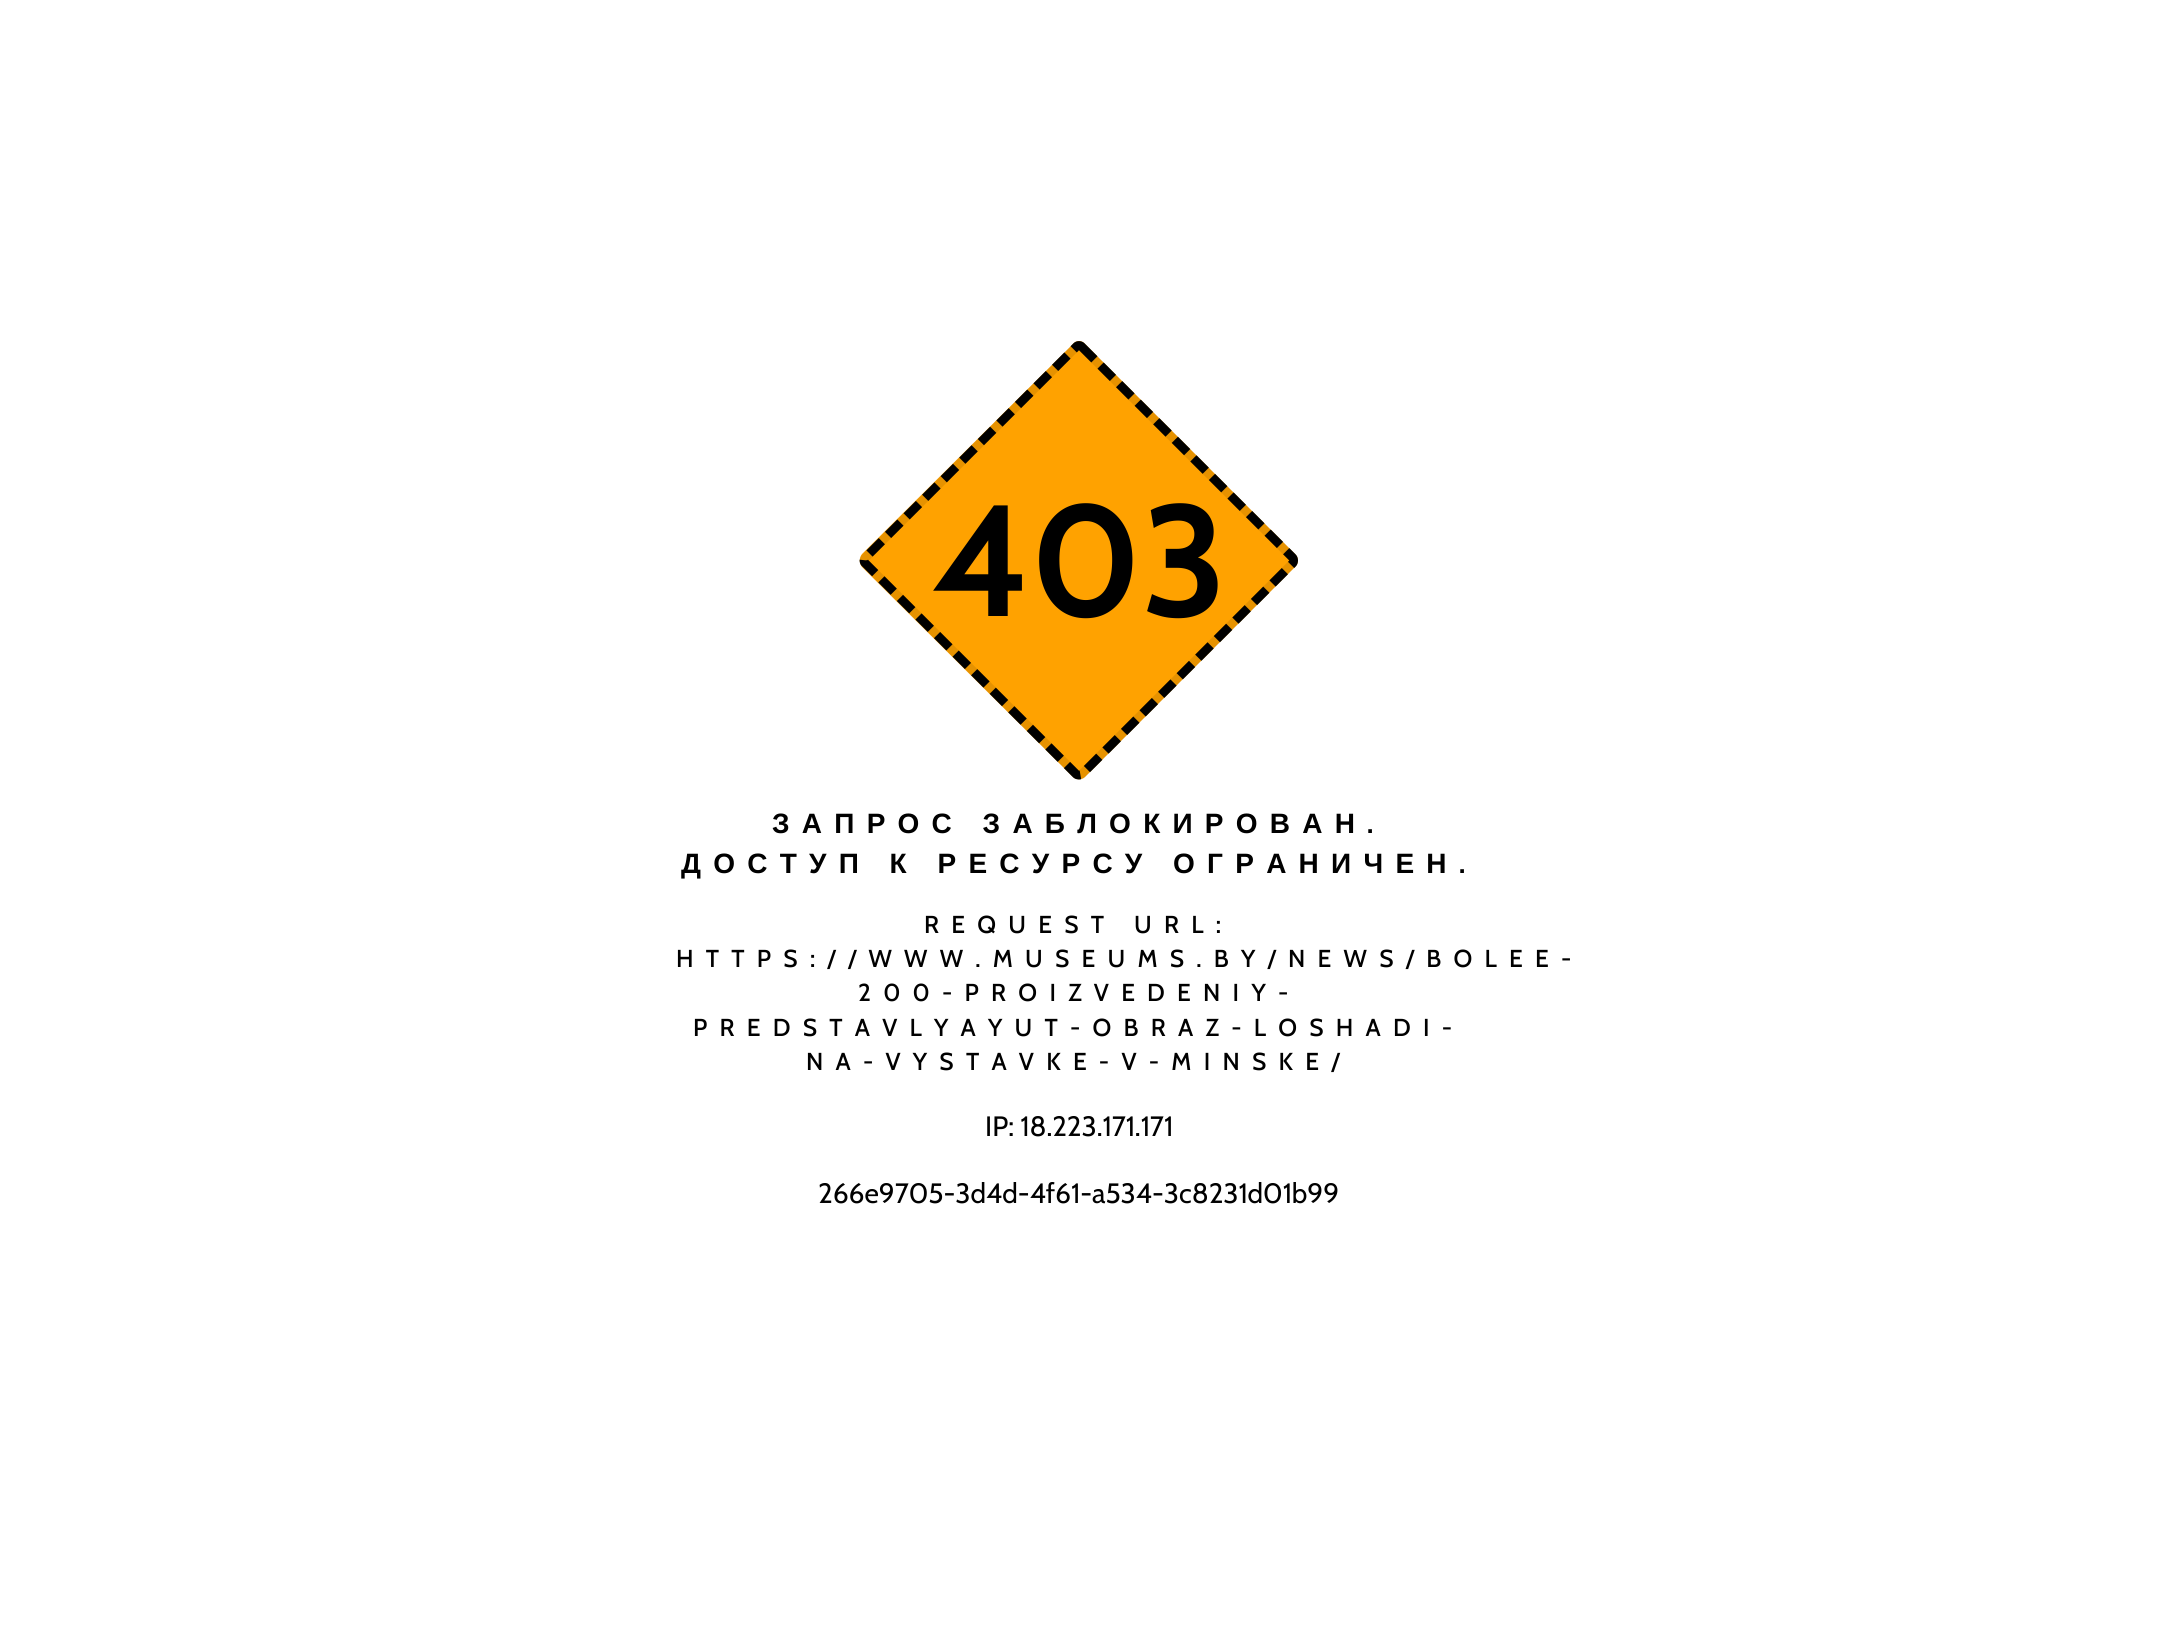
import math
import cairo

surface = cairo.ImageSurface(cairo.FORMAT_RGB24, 2157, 1645)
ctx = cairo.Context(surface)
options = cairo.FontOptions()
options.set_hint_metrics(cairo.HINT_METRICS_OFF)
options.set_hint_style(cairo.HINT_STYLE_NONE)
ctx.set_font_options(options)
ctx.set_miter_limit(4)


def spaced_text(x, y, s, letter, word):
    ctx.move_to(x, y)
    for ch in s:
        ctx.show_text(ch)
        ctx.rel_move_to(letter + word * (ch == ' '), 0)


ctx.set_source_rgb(1, 1, 1)
ctx.paint()
ctx.set_source_rgb(1, 0.635, 0)
ctx.new_path()
ctx.move_to(1085, 344)
ctx.line_to(1295, 554)
ctx.curve_to(1299, 558, 1299, 563, 1295, 567)
ctx.line_to(1085, 777)
ctx.curve_to(1082, 780, 1076, 780, 1073, 777)
ctx.line_to(862, 567)
ctx.curve_to(859, 563, 859, 558, 862, 554)
ctx.line_to(1073, 344)
ctx.curve_to(1076, 340, 1082, 340, 1085, 344)
ctx.close_path()
ctx.fill()
ctx.new_path()
ctx.move_to(1082, 347)
ctx.line_to(1292.5, 557.5)
ctx.curve_to(1294, 559, 1294, 562, 1292.5, 563.5)
ctx.line_to(1082, 774)
ctx.curve_to(1080.5, 775.5, 1077.5, 775.5, 1076, 774)
ctx.line_to(865.5, 563.5)
ctx.curve_to(863.5, 562, 863.5, 559, 865.5, 557.5)
ctx.line_to(1076, 347)
ctx.curve_to(1077.5, 345, 1080.5, 345, 1082, 347)
ctx.close_path()
ctx.set_source_rgb(0, 0, 0)
ctx.set_line_width(8.8)
ctx.set_dash([17.5, 8.75])
ctx.stroke()
ctx.new_path()
ctx.move_to(1082, 347)
ctx.line_to(1292.5, 557.5)
ctx.curve_to(1294, 559, 1294, 562, 1292.5, 563.5)
ctx.line_to(1082, 774)
ctx.curve_to(1080.5, 775.5, 1077.5, 775.5, 1076, 774)
ctx.line_to(865.5, 563.5)
ctx.curve_to(863.5, 562, 863.5, 559, 865.5, 557.5)
ctx.line_to(1076, 347)
ctx.curve_to(1077.5, 345, 1080.5, 345, 1082, 347)
ctx.close_path()
ctx.set_source_rgba(0, 0, 0, 0.1)
ctx.set_dash([])
ctx.stroke()
ctx.select_font_face("Cabin", cairo.FONT_SLANT_NORMAL, cairo.FONT_WEIGHT_BOLD)
ctx.set_font_size(158)
ctx.set_source_rgb(0, 0, 0)
ctx.move_to(932, 616)
ctx.show_text("403")
ctx.select_font_face("Liberation Sans", cairo.FONT_SLANT_NORMAL, cairo.FONT_WEIGHT_BOLD)
ctx.set_font_size(28)
spaced_text(772, 833, "ЗАПРОС ЗАБЛОКИРОВАН", 12.25, -1.5)
ctx.select_font_face("Cabin", cairo.FONT_SLANT_NORMAL, cairo.FONT_WEIGHT_BOLD)
spaced_text(1367, 833, ".", 12.25, 0)
ctx.select_font_face("Liberation Sans", cairo.FONT_SLANT_NORMAL, cairo.FONT_WEIGHT_BOLD)
spaced_text(681, 873, "ДОСТУП К РЕСУРСУ ОГРАНИЧЕН", 12.25, -1.5)
ctx.select_font_face("Cabin", cairo.FONT_SLANT_NORMAL, cairo.FONT_WEIGHT_BOLD)
spaced_text(1459, 873, ".", 12.25, 0)
ctx.select_font_face("Cabin Medium")
ctx.set_font_size(24.5)
spaced_text(924, 933, "REQUEST URL:", 12.25, 0)
spaced_text(676, 967, "HTTPS://WWW.MUSEUMS.BY/NEWS/BOLEE-", 12.25, 0)
spaced_text(858, 1001, "200-PROIZVEDENIY-", 12.25, 0)
spaced_text(693, 1036, "PREDSTAVLYAYUT-OBRAZ-LOSHADI-", 12.25, 0)
spaced_text(806, 1070, "NA-VYSTAVKE-V-MINSKE/", 12.25, 0)
ctx.select_font_face("Cabin")
ctx.set_font_size(28)
ctx.move_to(985, 1136)
ctx.show_text("IP: 18.223.171.171")
ctx.move_to(818, 1203)
ctx.show_text("266e9705-3d4d-4f61-a534-3c8231d01b99")
surface.write_to_png("page.png")
